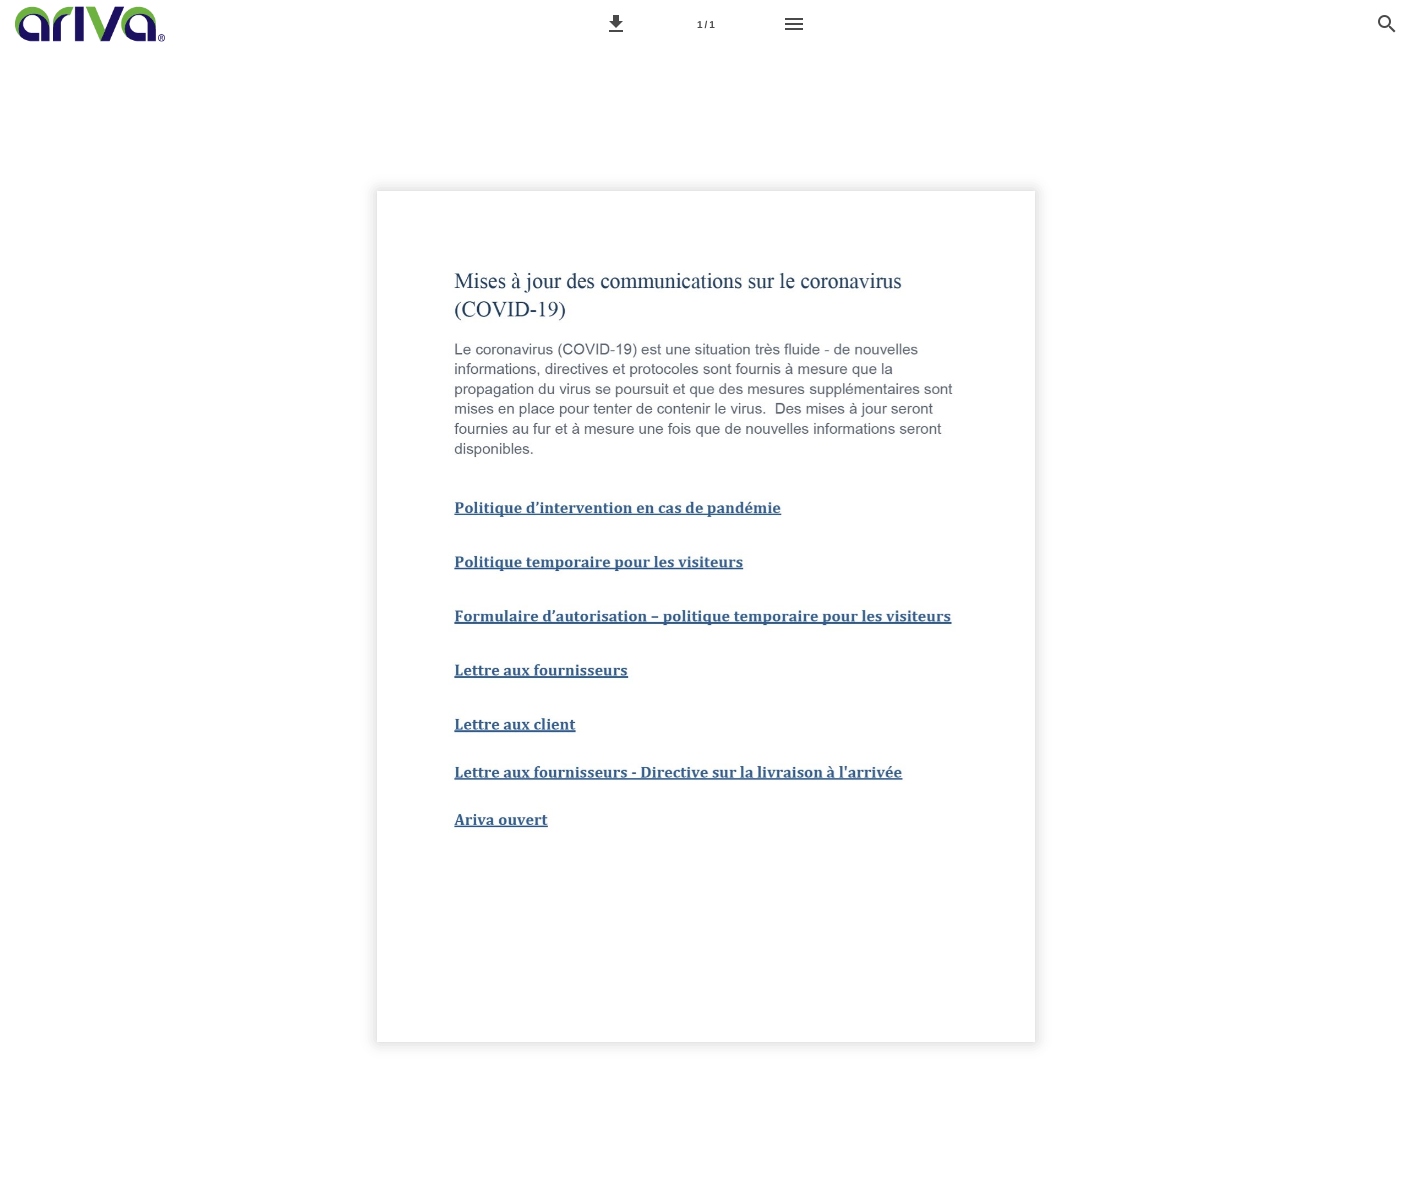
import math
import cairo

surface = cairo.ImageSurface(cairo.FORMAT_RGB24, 1411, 1185)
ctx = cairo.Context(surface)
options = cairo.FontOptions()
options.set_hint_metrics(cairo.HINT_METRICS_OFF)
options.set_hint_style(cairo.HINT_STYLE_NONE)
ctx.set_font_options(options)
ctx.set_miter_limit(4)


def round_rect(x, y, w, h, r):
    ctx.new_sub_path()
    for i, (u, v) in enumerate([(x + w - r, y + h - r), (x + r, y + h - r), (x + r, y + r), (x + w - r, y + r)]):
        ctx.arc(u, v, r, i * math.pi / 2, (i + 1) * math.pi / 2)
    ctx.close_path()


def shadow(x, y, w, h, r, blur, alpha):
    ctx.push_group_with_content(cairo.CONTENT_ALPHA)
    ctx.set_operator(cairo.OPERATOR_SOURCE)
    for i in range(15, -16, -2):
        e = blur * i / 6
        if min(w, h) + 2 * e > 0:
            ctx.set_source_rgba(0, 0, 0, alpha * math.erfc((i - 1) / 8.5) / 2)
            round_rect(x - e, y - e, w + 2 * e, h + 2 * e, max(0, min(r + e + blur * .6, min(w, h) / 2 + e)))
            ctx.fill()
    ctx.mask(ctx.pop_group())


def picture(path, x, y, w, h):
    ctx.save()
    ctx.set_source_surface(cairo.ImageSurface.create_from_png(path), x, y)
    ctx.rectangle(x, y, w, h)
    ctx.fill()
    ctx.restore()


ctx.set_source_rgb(1, 1, 1)
ctx.paint()
picture("img1.png", 15, 6, 150, 36)
picture("img2.png", 609, 15, 14, 17)
ctx.select_font_face("Liberation Sans", cairo.FONT_SLANT_NORMAL, cairo.FONT_WEIGHT_BOLD)
ctx.set_font_size(10)
ctx.set_source_rgb(0.29, 0.29, 0.29)
ctx.move_to(697, 28)
ctx.show_text("1 / 1")
picture("img3.png", 785, 18, 18, 12)
picture("img4.png", 1378, 15, 18, 18)
ctx.save()
ctx.set_fill_rule(cairo.FILL_RULE_EVEN_ODD)
ctx.new_path()
ctx.move_to(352, 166)
ctx.line_to(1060, 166)
ctx.line_to(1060, 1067)
ctx.line_to(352, 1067)
ctx.close_path()
ctx.move_to(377, 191)
ctx.line_to(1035, 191)
ctx.line_to(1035, 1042)
ctx.line_to(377, 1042)
ctx.close_path()
ctx.clip()
ctx.set_source_rgb(0, 0, 0)
shadow(377, 191, 658, 851, 0, 8, 0.2)
ctx.restore()
picture("img5.png", 448, 270, 508, 563)
surface.write_to_png("page.png")
